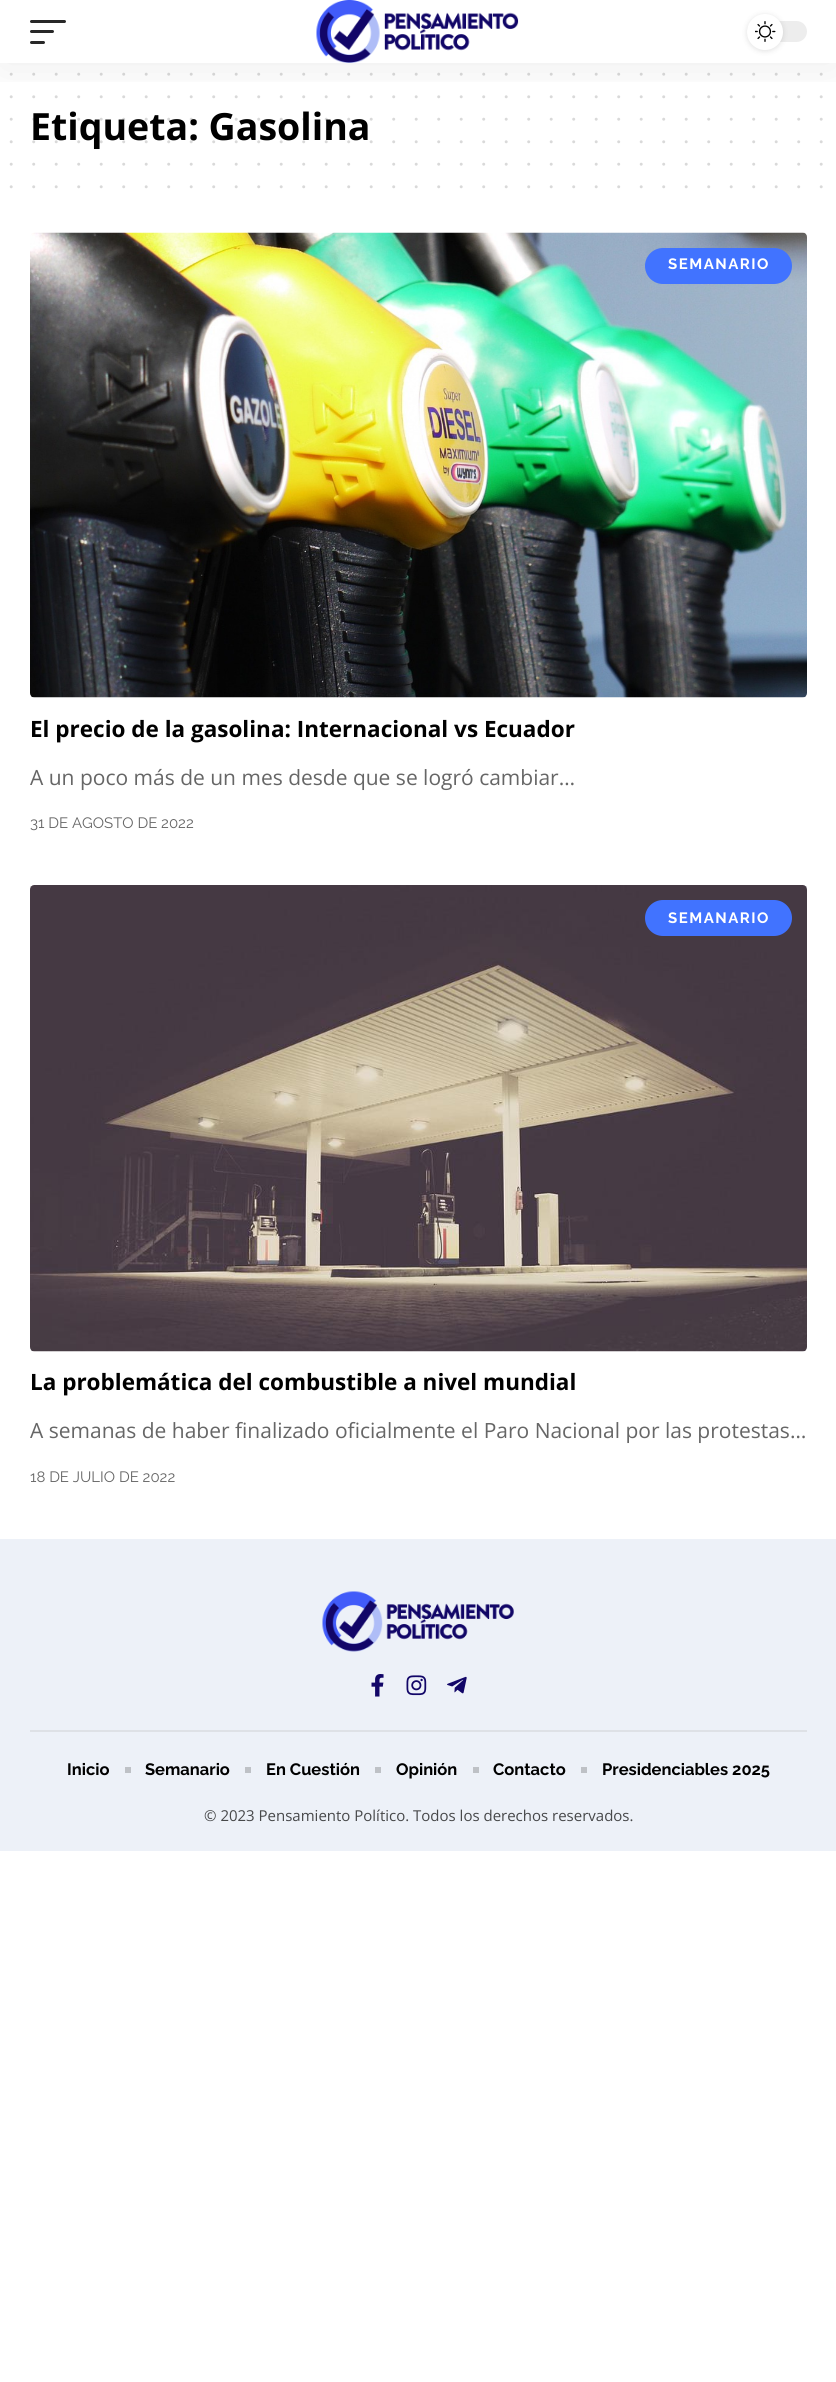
import math
import cairo

surface = cairo.ImageSurface(cairo.FORMAT_RGB24, 836, 2382)
ctx = cairo.Context(surface)
options = cairo.FontOptions()
options.set_hint_metrics(cairo.HINT_METRICS_OFF)
options.set_hint_style(cairo.HINT_STYLE_NONE)
ctx.set_font_options(options)
ctx.set_miter_limit(4)


def spaced_text(x, y, s, letter, word):
    ctx.move_to(x, y)
    for ch in s:
        ctx.show_text(ch)
        ctx.rel_move_to(letter + word * (ch == ' '), 0)


def round_rect(x, y, w, h, r):
    ctx.new_sub_path()
    for i, (u, v) in enumerate([(x + w - r, y + h - r), (x + r, y + h - r), (x + r, y + r), (x + w - r, y + r)]):
        ctx.arc(u, v, r, i * math.pi / 2, (i + 1) * math.pi / 2)
    ctx.close_path()


def shadow(x, y, w, h, r, blur, alpha):
    ctx.push_group_with_content(cairo.CONTENT_ALPHA)
    ctx.set_operator(cairo.OPERATOR_SOURCE)
    for i in range(15, -16, -2):
        e = blur * i / 6
        if min(w, h) + 2 * e > 0:
            ctx.set_source_rgba(0, 0, 0, alpha * math.erfc((i - 1) / 8.5) / 2)
            round_rect(x - e, y - e, w + 2 * e, h + 2 * e, max(0, min(r + e + blur * .6, min(w, h) / 2 + e)))
            ctx.fill()
    ctx.mask(ctx.pop_group())


def picture(path, x, y, w, h):
    ctx.save()
    ctx.set_source_surface(cairo.ImageSurface.create_from_png(path), x, y)
    ctx.rectangle(x, y, w, h)
    ctx.fill()
    ctx.restore()


ctx.set_source_rgb(1, 1, 1)
ctx.paint()
ctx.new_path()
ctx.move_to(11.2, 74.2)
ctx.line_to(821.6, 74.2)
ctx.set_source_rgb(0.851, 0.851, 0.851)
ctx.set_line_width(3)
ctx.set_line_cap(cairo.LINE_CAP_ROUND)
ctx.set_dash([0, 22.5])
ctx.stroke()
ctx.new_path()
ctx.move_to(11.2, 96.8)
ctx.line_to(821.6, 96.8)
ctx.stroke()
ctx.select_font_face("Open Sans", cairo.FONT_SLANT_NORMAL, cairo.FONT_WEIGHT_BOLD)
ctx.set_font_size(37.5)
ctx.set_source_rgb(0, 0, 0)
ctx.move_to(30, 140)
ctx.show_text("Etiqueta: Gasolina")
ctx.new_path()
ctx.move_to(11.2, 119.2)
ctx.line_to(821.6, 119.2)
ctx.set_source_rgba(0, 0, 0, 0.15)
ctx.stroke()
ctx.save()
ctx.rectangle(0, 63, 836, 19)
ctx.clip()
ctx.set_source_rgb(0, 0, 0)
shadow(0, 6, 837, 63, 0, 22.5, 0.07)
ctx.restore()
ctx.set_source_rgb(0.157, 0.157, 0.157)
round_rect(30, 20, 36, 3, 1.5)
ctx.fill()
round_rect(30, 30, 24, 3, 1.5)
ctx.fill()
round_rect(30, 41, 15, 3, 1.5)
ctx.fill()
picture("img1.png", 316, 0, 203, 63)
ctx.set_source_rgb(0.929, 0.929, 0.929)
round_rect(747, 21, 60, 21, 10.5)
ctx.fill()
ctx.set_source_rgb(0, 0, 0)
shadow(747, 15, 36, 36, 18, 3, 0.12)
ctx.set_source_rgb(1, 1, 1)
ctx.arc(765, 32, 18, 0, 2 * math.pi)
ctx.fill()
picture("img2.png", 755, 21, 21, 21)
ctx.new_path()
ctx.move_to(11.2, 141.8)
ctx.line_to(821.6, 141.8)
ctx.set_source_rgba(0, 0, 0, 0.15)
ctx.stroke()
ctx.new_path()
ctx.move_to(11.2, 164.2)
ctx.line_to(821.6, 164.2)
ctx.set_source_rgb(0.851, 0.851, 0.851)
ctx.stroke()
ctx.new_path()
ctx.move_to(11.2, 186.8)
ctx.line_to(821.6, 186.8)
ctx.stroke()
picture("img3.png", 30, 232, 777, 466)
ctx.set_source_rgb(0.255, 0.451, 1)
round_rect(645, 248, 147, 36, 18)
ctx.fill()
ctx.select_font_face("Raleway", cairo.FONT_SLANT_NORMAL, cairo.FONT_WEIGHT_BOLD)
ctx.set_font_size(15)
ctx.set_source_rgb(1, 1, 1)
spaced_text(668, 269, "SEMANARIO", 1.5, 0)
ctx.select_font_face("Open Sans", cairo.FONT_SLANT_NORMAL, cairo.FONT_WEIGHT_BOLD)
ctx.set_font_size(22.5)
ctx.set_source_rgb(0, 0, 0)
ctx.move_to(30, 737)
ctx.show_text("El precio de la gasolina: Internacional vs Ecuador")
ctx.select_font_face("Open Sans")
ctx.set_font_size(21)
ctx.set_source_rgb(0.4, 0.4, 0.4)
ctx.move_to(30, 785)
ctx.show_text("A un poco más de un mes desde que se logró cambiar…")
ctx.select_font_face("Raleway")
ctx.set_font_size(15)
ctx.move_to(30, 828)
ctx.show_text("31 DE AGOSTO DE 2022")
picture("img4.png", 30, 885, 777, 467)
ctx.set_source_rgb(0.255, 0.451, 1)
round_rect(645, 900, 147, 36, 18)
ctx.fill()
ctx.select_font_face("Raleway", cairo.FONT_SLANT_NORMAL, cairo.FONT_WEIGHT_BOLD)
ctx.set_source_rgb(1, 1, 1)
spaced_text(668, 923, "SEMANARIO", 1.5, 0)
ctx.select_font_face("Open Sans", cairo.FONT_SLANT_NORMAL, cairo.FONT_WEIGHT_BOLD)
ctx.set_font_size(22.5)
ctx.set_source_rgb(0, 0, 0)
ctx.move_to(30, 1390)
ctx.show_text("La problemática del combustible a nivel mundial")
ctx.select_font_face("Open Sans")
ctx.set_font_size(21)
ctx.set_source_rgb(0.4, 0.4, 0.4)
ctx.move_to(30, 1438)
ctx.show_text("A semanas de haber finalizado oficialmente el Paro Nacional por las protestas…")
ctx.select_font_face("Raleway")
ctx.set_font_size(15)
ctx.move_to(30, 1482)
ctx.show_text("18 DE JULIO DE 2022")
ctx.set_source_rgb(0.929, 0.945, 0.969)
ctx.rectangle(0, 1539, 836, 312)
ctx.fill()
picture("img5.png", 322, 1591, 192, 61)
picture("img6.png", 371, 1674, 13, 23)
picture("img7.png", 406, 1675, 21, 21)
picture("img8.png", 447, 1676, 20, 18)
ctx.set_source_rgb(0.871, 0.882, 0.902)
ctx.rectangle(30, 1730, 777, 2)
ctx.fill()
ctx.select_font_face("Raleway", cairo.FONT_SLANT_NORMAL, cairo.FONT_WEIGHT_BOLD)
ctx.set_font_size(16.5)
ctx.set_source_rgb(0, 0, 0)
ctx.move_to(67, 1775)
ctx.show_text("Inicio")
ctx.set_source_rgb(0.745, 0.757, 0.776)
ctx.rectangle(125, 1767, 6, 6)
ctx.fill()
ctx.set_source_rgb(0, 0, 0)
ctx.move_to(145, 1775)
ctx.show_text("Semanario")
ctx.set_source_rgb(0.745, 0.757, 0.776)
ctx.rectangle(245, 1767, 6, 6)
ctx.fill()
ctx.set_source_rgb(0, 0, 0)
ctx.move_to(266, 1775)
ctx.show_text("En Cuestión")
ctx.set_source_rgb(0.745, 0.757, 0.776)
ctx.rectangle(375, 1767, 6, 6)
ctx.fill()
ctx.set_source_rgb(0, 0, 0)
ctx.move_to(396, 1775)
ctx.show_text("Opinión")
ctx.set_source_rgb(0.745, 0.757, 0.776)
ctx.rectangle(473, 1767, 6, 6)
ctx.fill()
ctx.set_source_rgb(0, 0, 0)
ctx.move_to(493, 1775)
ctx.show_text("Contacto")
ctx.set_source_rgb(0.745, 0.757, 0.776)
ctx.rectangle(581, 1767, 6, 6)
ctx.fill()
ctx.set_source_rgb(0, 0, 0)
ctx.move_to(602, 1775)
ctx.show_text("Presidenciables 2025")
ctx.select_font_face("Open Sans")
ctx.set_font_size(15)
ctx.set_source_rgb(0.278, 0.282, 0.29)
ctx.move_to(204, 1821)
ctx.show_text("© 2023 Pensamiento Político. Todos los derechos reservados.")
surface.write_to_png("page.png")
